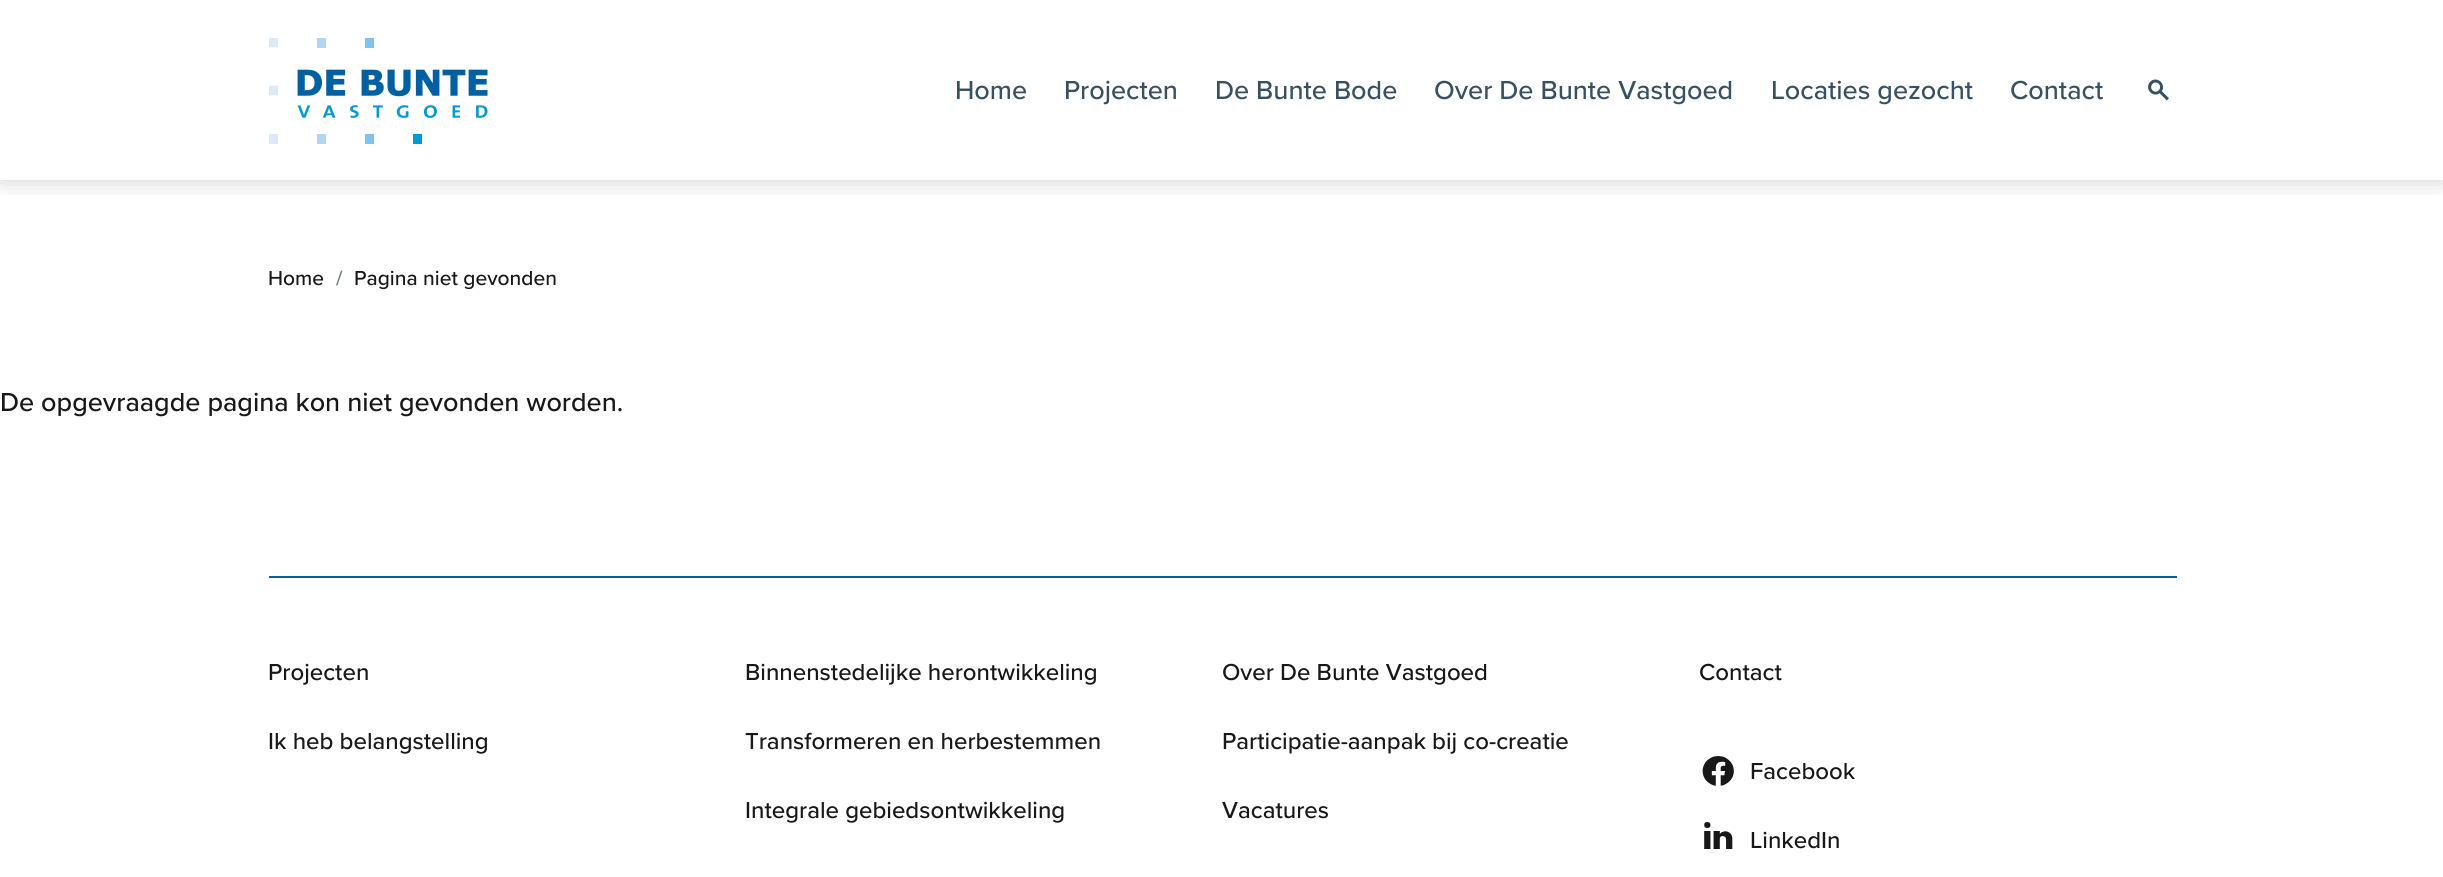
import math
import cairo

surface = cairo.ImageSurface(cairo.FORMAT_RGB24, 2443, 877)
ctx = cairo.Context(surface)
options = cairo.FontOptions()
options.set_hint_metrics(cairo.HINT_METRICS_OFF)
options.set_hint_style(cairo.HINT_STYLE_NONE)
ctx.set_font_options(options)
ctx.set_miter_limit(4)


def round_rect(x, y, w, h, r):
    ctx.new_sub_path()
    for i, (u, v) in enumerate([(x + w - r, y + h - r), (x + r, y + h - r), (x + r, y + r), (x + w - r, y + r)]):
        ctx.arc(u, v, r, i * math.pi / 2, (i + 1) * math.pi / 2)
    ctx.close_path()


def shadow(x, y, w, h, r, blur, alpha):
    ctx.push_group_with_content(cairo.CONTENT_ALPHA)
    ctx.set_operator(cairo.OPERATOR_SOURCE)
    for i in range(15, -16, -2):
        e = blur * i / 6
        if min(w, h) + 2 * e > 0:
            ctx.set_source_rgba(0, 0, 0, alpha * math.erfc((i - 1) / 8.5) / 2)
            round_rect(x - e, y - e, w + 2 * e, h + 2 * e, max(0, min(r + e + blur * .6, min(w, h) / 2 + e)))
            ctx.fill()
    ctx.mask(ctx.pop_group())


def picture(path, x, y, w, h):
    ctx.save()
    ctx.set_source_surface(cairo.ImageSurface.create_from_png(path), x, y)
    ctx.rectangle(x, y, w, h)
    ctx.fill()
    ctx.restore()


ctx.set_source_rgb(1, 1, 1)
ctx.paint()
ctx.save()
ctx.rectangle(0, 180, 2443, 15)
ctx.clip()
ctx.set_source_rgb(0, 0, 0)
shadow(0, 0, 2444, 180, 0, 12, 0.2)
ctx.restore()
picture("img1.png", 269, 38, 219, 106)
ctx.select_font_face("Proxima Nova Medium")
ctx.set_font_size(27)
ctx.set_source_rgb(0.216, 0.318, 0.384)
ctx.move_to(955, 99)
ctx.show_text("Home")
ctx.move_to(1064, 99)
ctx.show_text("Projecten")
ctx.move_to(1215, 99)
ctx.show_text("De Bunte Bode")
ctx.move_to(1434, 99)
ctx.show_text("Over De Bunte Vastgoed")
ctx.move_to(1771, 99)
ctx.show_text("Locaties gezocht")
ctx.move_to(2010, 99)
ctx.show_text("Contact")
picture("img2.png", 2148, 79, 21, 22)
ctx.set_font_size(21)
ctx.set_source_rgb(0.094, 0.094, 0.094)
ctx.move_to(268, 285)
ctx.show_text("Home")
ctx.set_source_rgb(0.424, 0.459, 0.49)
ctx.move_to(336, 285)
ctx.show_text("/")
ctx.set_source_rgb(0.094, 0.094, 0.094)
ctx.move_to(354, 285)
ctx.show_text("Pagina niet gevonden")
ctx.set_font_size(27)
ctx.move_to(0, 411)
ctx.show_text("De opgevraagde pagina kon niet gevonden worden.")
ctx.set_source_rgb(0, 0.376, 0.631)
ctx.rectangle(269, 576, 1908, 2)
ctx.fill()
ctx.set_font_size(24)
ctx.set_source_rgb(0.094, 0.094, 0.094)
ctx.move_to(268, 680)
ctx.show_text("Projecten")
ctx.move_to(268, 749)
ctx.show_text("Ik heb belangstelling")
ctx.move_to(745, 680)
ctx.show_text("Binnenstedelijke herontwikkeling")
ctx.move_to(745, 749)
ctx.show_text("Transformeren en herbestemmen")
ctx.move_to(745, 818)
ctx.show_text("Integrale gebiedsontwikkeling")
ctx.move_to(1222, 680)
ctx.show_text("Over De Bunte Vastgoed")
ctx.move_to(1222, 749)
ctx.show_text("Participatie-aanpak bij co-creatie")
ctx.move_to(1222, 818)
ctx.show_text("Vacatures")
ctx.move_to(1699, 680)
ctx.show_text("Contact")
picture("img3.png", 1702, 756, 32, 30)
ctx.move_to(1750, 779)
ctx.show_text("Facebook")
picture("img4.png", 1704, 822, 29, 27)
ctx.move_to(1750, 848)
ctx.show_text("LinkedIn")
surface.write_to_png("page.png")
